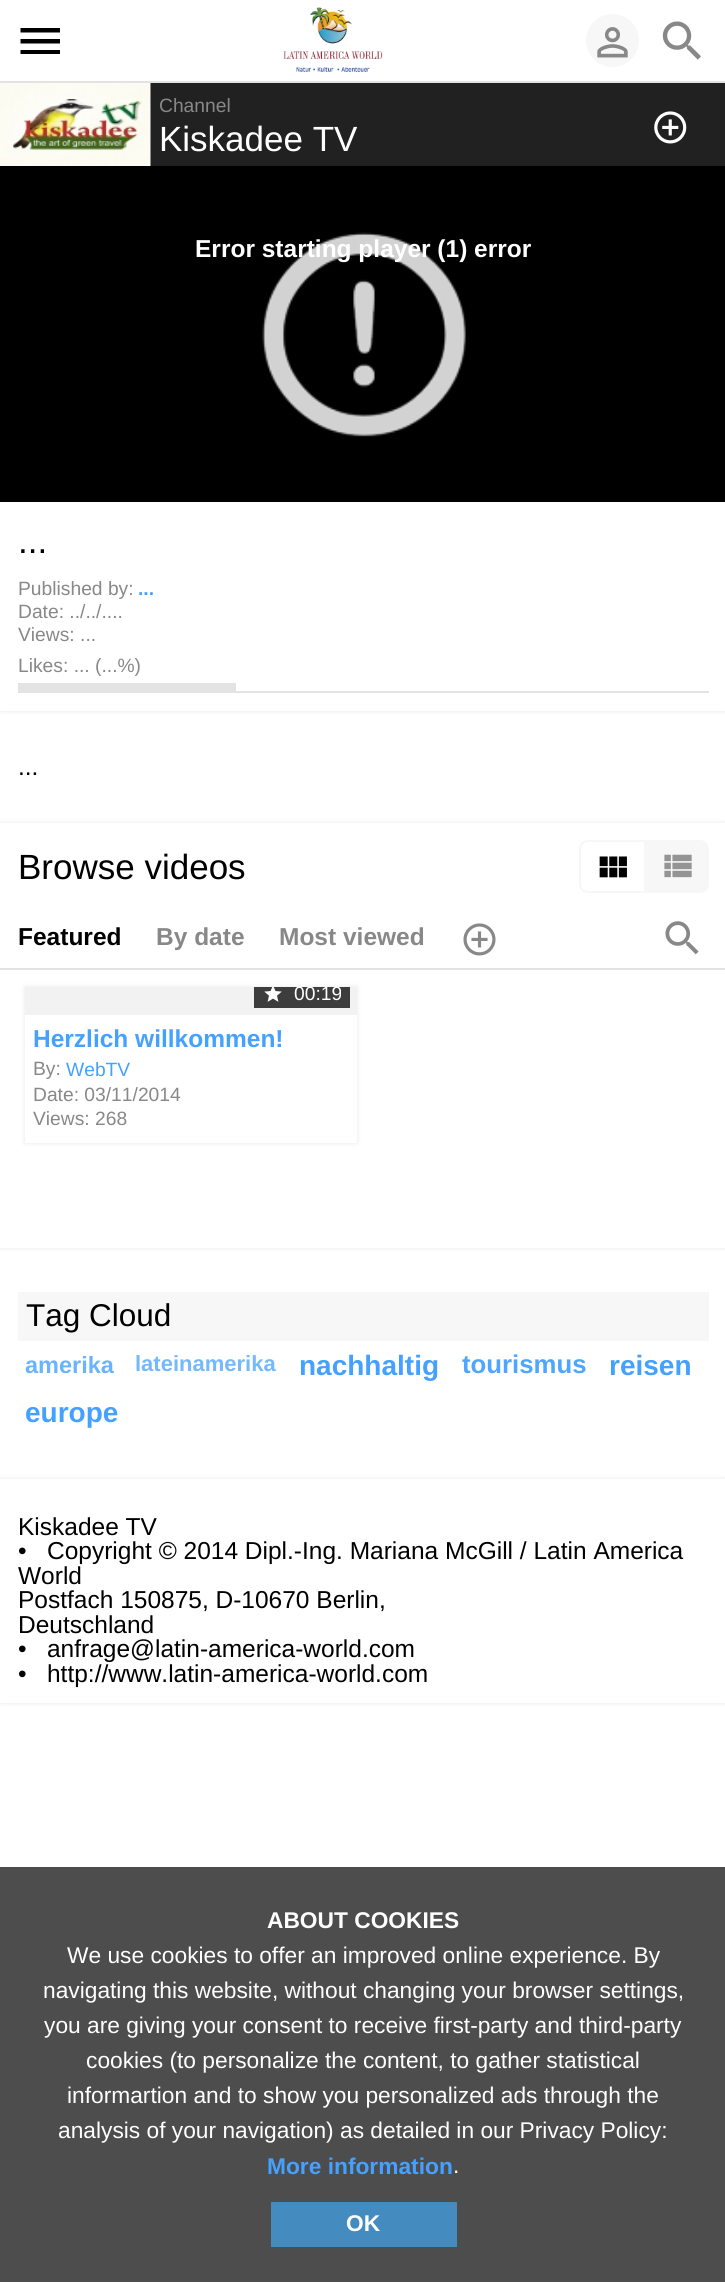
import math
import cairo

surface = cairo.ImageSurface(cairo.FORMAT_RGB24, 725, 2282)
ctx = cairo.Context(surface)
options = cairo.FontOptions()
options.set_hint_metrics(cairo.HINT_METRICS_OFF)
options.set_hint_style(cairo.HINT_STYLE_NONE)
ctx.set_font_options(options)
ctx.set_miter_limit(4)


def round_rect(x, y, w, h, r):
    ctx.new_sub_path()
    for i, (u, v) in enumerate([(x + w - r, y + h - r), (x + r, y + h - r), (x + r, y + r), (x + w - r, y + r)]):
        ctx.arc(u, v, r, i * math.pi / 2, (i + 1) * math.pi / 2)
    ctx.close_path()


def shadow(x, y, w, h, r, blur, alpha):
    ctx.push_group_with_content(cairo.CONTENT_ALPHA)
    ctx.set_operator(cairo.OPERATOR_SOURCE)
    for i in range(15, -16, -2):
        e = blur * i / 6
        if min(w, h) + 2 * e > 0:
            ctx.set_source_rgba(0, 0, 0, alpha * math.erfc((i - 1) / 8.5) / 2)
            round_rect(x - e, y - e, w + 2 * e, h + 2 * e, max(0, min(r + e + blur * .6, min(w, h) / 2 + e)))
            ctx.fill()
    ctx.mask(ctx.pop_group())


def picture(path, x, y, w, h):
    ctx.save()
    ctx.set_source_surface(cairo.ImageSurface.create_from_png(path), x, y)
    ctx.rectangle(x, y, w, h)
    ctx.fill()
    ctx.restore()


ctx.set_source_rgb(1, 1, 1)
ctx.paint()
ctx.set_source_rgb(0.89, 0.89, 0.89)
ctx.rectangle(0, 81, 725, 2)
ctx.fill()
ctx.set_source_rgb(0, 0, 0)
ctx.new_path()
ctx.move_to(20.5, 28)
ctx.line_to(60, 28)
ctx.line_to(60, 32.5)
ctx.line_to(20.5, 32.5)
ctx.close_path()
ctx.move_to(20.5, 43.5)
ctx.line_to(20.5, 39)
ctx.line_to(60, 39)
ctx.line_to(60, 43.5)
ctx.close_path()
ctx.move_to(20.5, 54)
ctx.line_to(20.5, 50)
ctx.line_to(60, 50)
ctx.line_to(60, 54)
ctx.close_path()
ctx.fill()
picture("img1.png", 283, 7, 100, 65)
ctx.set_source_rgb(0.965, 0.965, 0.965)
ctx.arc(612.5, 40.5, 26.5, 0, 2 * math.pi)
ctx.fill()
picture("img2.png", 597, 27, 31, 31)
picture("img3.png", 662, 21, 39, 39)
ctx.set_source_rgb(0.129, 0.129, 0.129)
ctx.rectangle(150, 83, 575, 83)
ctx.fill()
ctx.set_source_rgb(0, 0, 0)
shadow(0, 166, 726, 336, 0, 2.5, 0.1)
picture("img4.png", 0, 83, 151, 83)
ctx.select_font_face("Liberation Sans")
ctx.set_font_size(19.25)
ctx.set_source_rgb(0.533, 0.533, 0.533)
ctx.move_to(159, 112)
ctx.show_text("Channel")
ctx.set_font_size(35)
ctx.set_source_rgb(1, 1, 1)
ctx.move_to(159, 151)
ctx.show_text("Kiskadee TV")
picture("img5.png", 654, 111, 33, 33)
ctx.set_source_rgb(0, 0, 0)
shadow(0, 502, 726, 209, 0, 2.5, 0.1)
ctx.set_source_rgb(0, 0, 0)
ctx.rectangle(0, 166, 725, 336)
ctx.fill()
picture("img6.png", 262, 232, 204, 205)
ctx.select_font_face("Liberation Sans", cairo.FONT_SLANT_NORMAL, cairo.FONT_WEIGHT_BOLD)
ctx.set_font_size(24.5)
ctx.set_source_rgb(1, 1, 1)
ctx.move_to(195, 257)
ctx.show_text("Error starting player (1) error")
ctx.rectangle(0, 502, 725, 209)
ctx.fill()
ctx.select_font_face("Liberation Sans")
ctx.set_font_size(35)
ctx.set_source_rgb(0, 0, 0)
ctx.move_to(18, 553)
ctx.show_text("...")
ctx.set_source_rgb(0.89, 0.89, 0.89)
ctx.rectangle(18, 691, 691, 2)
ctx.fill()
ctx.set_font_size(19.25)
ctx.set_source_rgb(0.533, 0.533, 0.533)
ctx.move_to(18, 595)
ctx.show_text("Published by:")
ctx.select_font_face("Liberation Sans", cairo.FONT_SLANT_NORMAL, cairo.FONT_WEIGHT_BOLD)
ctx.set_source_rgb(0.271, 0.631, 1)
ctx.move_to(138, 595)
ctx.show_text("...")
ctx.select_font_face("Liberation Sans")
ctx.set_source_rgb(0.533, 0.533, 0.533)
ctx.move_to(18, 618)
ctx.show_text("Date: ../../....")
ctx.move_to(18, 641)
ctx.show_text("Views: ...")
ctx.move_to(18, 672)
ctx.show_text("Likes: ... (...%)")
ctx.set_source_rgb(0.89, 0.89, 0.89)
ctx.rectangle(18, 683, 218, 8)
ctx.fill()
ctx.set_font_size(24.5)
ctx.set_source_rgb(0, 0, 0)
ctx.move_to(18, 775)
ctx.show_text("...")
ctx.set_source_rgb(0, 0, 0)
shadow(0, 823, 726, 425, 0, 2.5, 0.1)
ctx.set_source_rgb(1, 1, 1)
ctx.rectangle(0, 823, 725, 425)
ctx.fill()
ctx.set_font_size(35)
ctx.set_source_rgb(0, 0, 0)
ctx.move_to(18, 879)
ctx.show_text("Browse videos")
ctx.new_path()
ctx.move_to(588, 841)
ctx.line_to(645, 841)
ctx.line_to(645, 892)
ctx.line_to(588, 892)
ctx.curve_to(583.5, 892, 580, 888.5, 580, 884)
ctx.line_to(580, 849)
ctx.curve_to(580, 844.5, 583.5, 841, 588, 841)
ctx.close_path()
ctx.set_source_rgb(0.965, 0.965, 0.965)
ctx.stroke()
picture("img7.png", 599, 856, 28, 22)
ctx.new_path()
ctx.move_to(646, 840)
ctx.line_to(700, 840)
ctx.curve_to(705, 840, 709, 844, 709, 849)
ctx.line_to(709, 884)
ctx.curve_to(709, 889, 705, 893, 700, 893)
ctx.line_to(646, 893)
ctx.close_path()
ctx.fill()
picture("img8.png", 664, 854, 28, 24)
ctx.set_source_rgb(0.89, 0.89, 0.89)
ctx.rectangle(0, 968, 725, 2)
ctx.fill()
ctx.select_font_face("Liberation Sans", cairo.FONT_SLANT_NORMAL, cairo.FONT_WEIGHT_BOLD)
ctx.set_font_size(24.5)
ctx.set_source_rgb(0, 0, 0)
ctx.move_to(18, 945)
ctx.show_text("Featured")
ctx.set_source_rgb(0.533, 0.533, 0.533)
ctx.move_to(156, 945)
ctx.show_text("By date")
ctx.move_to(279, 945)
ctx.show_text("Most viewed")
picture("img9.png", 463, 923, 33, 33)
picture("img10.png", 665, 921, 34, 34)
ctx.save()
ctx.set_fill_rule(cairo.FILL_RULE_EVEN_ODD)
ctx.new_path()
ctx.move_to(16, 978)
ctx.line_to(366, 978)
ctx.line_to(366, 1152)
ctx.line_to(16, 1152)
ctx.close_path()
ctx.move_to(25, 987)
ctx.line_to(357, 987)
ctx.line_to(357, 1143)
ctx.line_to(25, 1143)
ctx.close_path()
ctx.clip()
ctx.set_source_rgb(0, 0, 0)
shadow(25, 987, 332, 156, 0, 2.5, 0.1)
ctx.restore()
ctx.set_source_rgb(0.949, 0.949, 0.949)
ctx.rectangle(25, 987, 332, 28)
ctx.fill()
ctx.set_source_rgb(0.239, 0.239, 0.239)
ctx.rectangle(254, 987, 96, 21)
ctx.fill()
picture("img11.png", 264, 987, 18, 15)
ctx.save()
ctx.rectangle(25, 987, 332, 156)
ctx.clip()
ctx.select_font_face("Liberation Sans")
ctx.set_font_size(19.25)
ctx.set_source_rgb(1, 1, 1)
ctx.move_to(294, 1000)
ctx.show_text("00:19")
ctx.restore()
ctx.set_source_rgb(0.271, 0.631, 1)
ctx.move_to(33, 1047)
ctx.show_text("Herzlich willkommen!")
ctx.select_font_face("Liberation Sans")
ctx.set_font_size(19.25)
ctx.set_source_rgb(0.533, 0.533, 0.533)
ctx.move_to(33, 1075)
ctx.show_text("By:")
ctx.set_source_rgb(0.271, 0.631, 1)
ctx.move_to(66, 1076)
ctx.show_text("WebTV")
ctx.set_source_rgb(0.533, 0.533, 0.533)
ctx.move_to(33, 1101)
ctx.show_text("Date: 03/11/2014")
ctx.move_to(33, 1125)
ctx.show_text("Views: 268")
ctx.set_source_rgb(0.965, 0.965, 0.965)
ctx.rectangle(18, 1292, 691, 49)
ctx.fill()
ctx.set_font_size(31.5)
ctx.set_source_rgb(0, 0, 0)
ctx.move_to(26, 1326)
ctx.show_text("Tag Cloud")
ctx.select_font_face("Liberation Sans", cairo.FONT_SLANT_NORMAL, cairo.FONT_WEIGHT_BOLD)
ctx.set_font_size(23.5)
ctx.set_source_rgb(0.416, 0.706, 1)
ctx.move_to(25, 1373)
ctx.show_text("amerika")
ctx.set_font_size(22)
ctx.set_source_rgb(0.455, 0.725, 1)
ctx.move_to(135, 1371)
ctx.show_text("lateinamerika")
ctx.set_font_size(28)
ctx.set_source_rgb(0.271, 0.631, 1)
ctx.move_to(299, 1375)
ctx.show_text("nachhaltig")
ctx.set_font_size(25.75)
ctx.set_source_rgb(0.306, 0.651, 1)
ctx.move_to(462, 1373)
ctx.show_text("tourismus")
ctx.set_font_size(28)
ctx.set_source_rgb(0.271, 0.631, 1)
ctx.move_to(609, 1375)
ctx.show_text("reisen")
ctx.move_to(25, 1422)
ctx.show_text("europe")
ctx.set_source_rgb(0, 0, 0)
shadow(0, 1479, 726, 224, 0, 2.5, 0.1)
ctx.set_source_rgb(1, 1, 1)
ctx.rectangle(0, 1479, 725, 224)
ctx.fill()
ctx.select_font_face("Liberation Sans")
ctx.set_font_size(24.5)
ctx.set_source_rgb(0, 0, 0)
ctx.move_to(18, 1535)
ctx.show_text("Kiskadee TV")
ctx.move_to(18, 1559)
ctx.show_text("•   Copyright © 2014 Dipl.-Ing. Mariana McGill / Latin America")
ctx.move_to(18, 1584)
ctx.show_text("World")
ctx.move_to(18, 1608)
ctx.show_text("Postfach 150875, D-10670 Berlin,")
ctx.move_to(18, 1633)
ctx.show_text("Deutschland")
ctx.move_to(18, 1657)
ctx.show_text("•   anfrage@latin-america-world.com")
ctx.move_to(18, 1682)
ctx.show_text("•   http://www.latin-america-world.com")
ctx.set_source_rgb(0.302, 0.302, 0.302)
ctx.rectangle(0, 1867, 725, 415)
ctx.fill()
ctx.select_font_face("Liberation Sans", cairo.FONT_SLANT_NORMAL, cairo.FONT_WEIGHT_BOLD)
ctx.set_font_size(22.75)
ctx.set_source_rgb(1, 1, 1)
ctx.move_to(267, 1928)
ctx.show_text("ABOUT COOKIES")
ctx.select_font_face("Liberation Sans")
ctx.move_to(67, 1963)
ctx.show_text("We use cookies to offer an improved online experience. By")
ctx.move_to(43, 1998)
ctx.show_text("navigating this website, without changing your browser settings,")
ctx.move_to(44, 2033)
ctx.show_text("you are giving your consent to receive first-party and third-party")
ctx.move_to(86, 2068)
ctx.show_text("cookies (to personalize the content, to gather statistical")
ctx.move_to(67, 2103)
ctx.show_text("informartion and to show you personalized ads through the")
ctx.move_to(58, 2138)
ctx.show_text("analysis of your navigation) as detailed in our Privacy Policy:")
ctx.select_font_face("Liberation Sans", cairo.FONT_SLANT_NORMAL, cairo.FONT_WEIGHT_BOLD)
ctx.set_source_rgb(0.271, 0.631, 1)
ctx.move_to(267, 2174)
ctx.show_text("More information")
ctx.select_font_face("Liberation Sans")
ctx.set_source_rgb(1, 1, 1)
ctx.move_to(453, 2173)
ctx.show_text(".")
ctx.set_source_rgb(0.267, 0.545, 0.753)
ctx.rectangle(271, 2202, 186, 45)
ctx.fill()
ctx.select_font_face("Liberation Sans", cairo.FONT_SLANT_NORMAL, cairo.FONT_WEIGHT_BOLD)
ctx.set_source_rgb(1, 1, 1)
ctx.move_to(346, 2231)
ctx.show_text("OK")
surface.write_to_png("page.png")
